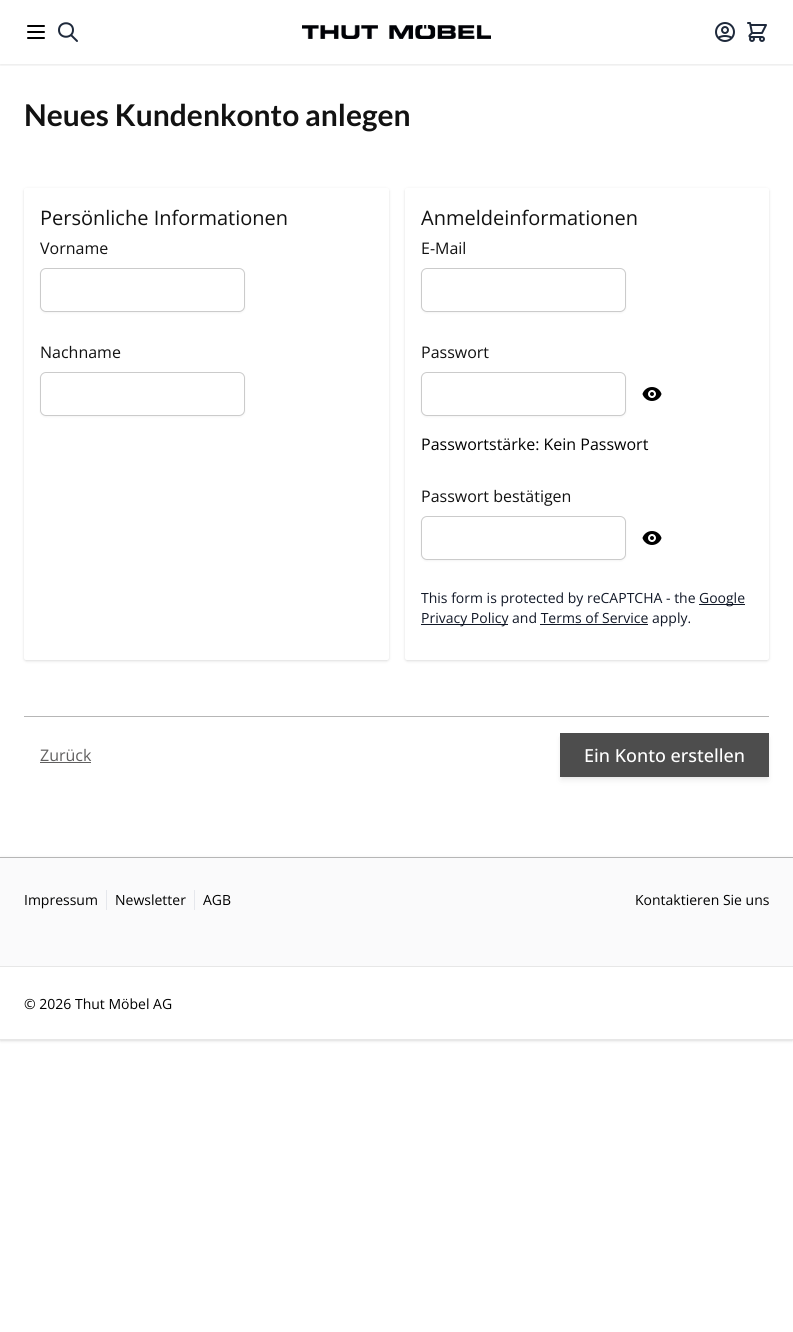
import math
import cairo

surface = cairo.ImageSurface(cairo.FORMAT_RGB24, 793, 1332)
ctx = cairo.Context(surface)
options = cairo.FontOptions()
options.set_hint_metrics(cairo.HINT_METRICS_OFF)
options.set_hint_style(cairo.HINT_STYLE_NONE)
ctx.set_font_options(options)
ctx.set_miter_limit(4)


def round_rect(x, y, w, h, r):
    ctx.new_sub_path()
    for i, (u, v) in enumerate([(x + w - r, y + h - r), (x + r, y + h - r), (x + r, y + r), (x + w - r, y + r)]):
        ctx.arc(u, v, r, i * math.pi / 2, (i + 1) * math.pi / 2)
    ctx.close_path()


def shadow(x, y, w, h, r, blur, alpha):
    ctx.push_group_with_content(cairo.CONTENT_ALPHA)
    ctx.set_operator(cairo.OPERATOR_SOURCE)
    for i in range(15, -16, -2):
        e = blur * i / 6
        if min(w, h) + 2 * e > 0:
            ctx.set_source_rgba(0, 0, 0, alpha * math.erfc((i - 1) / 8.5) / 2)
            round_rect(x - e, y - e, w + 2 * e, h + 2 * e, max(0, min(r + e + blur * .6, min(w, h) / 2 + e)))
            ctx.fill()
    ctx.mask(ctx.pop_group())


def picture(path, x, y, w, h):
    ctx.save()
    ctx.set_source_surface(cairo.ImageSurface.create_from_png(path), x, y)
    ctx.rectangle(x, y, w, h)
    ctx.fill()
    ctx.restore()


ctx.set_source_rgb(1, 1, 1)
ctx.paint()
ctx.save()
ctx.rectangle(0, 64, 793, 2)
ctx.clip()
ctx.set_source_rgb(0, 0, 0)
shadow(0, 1, 793, 64, 0, 1.5, 0.1)
ctx.restore()
ctx.new_path()
ctx.move_to(28, 26)
ctx.line_to(44, 26)
ctx.move_to(28, 32)
ctx.line_to(44, 32)
ctx.move_to(28, 38)
ctx.line_to(44, 38)
ctx.set_source_rgb(0, 0, 0)
ctx.set_line_cap(cairo.LINE_CAP_ROUND)
ctx.set_line_join(cairo.LINE_JOIN_ROUND)
ctx.stroke()
ctx.new_path()
ctx.move_to(77, 41)
ctx.line_to(71, 35)
ctx.move_to(73, 30)
ctx.curve_to(73, 39, 59, 39, 59, 30)
ctx.curve_to(59, 21, 73, 21, 73, 30)
ctx.close_path()
ctx.set_source_rgb(0.118, 0.161, 0.231)
ctx.stroke()
picture("img1.png", 302, 25, 189, 14)
picture("img2.png", 715, 22, 20, 20)
picture("img3.png", 747, 22, 20, 20)
ctx.select_font_face("Lato", cairo.FONT_SLANT_NORMAL, cairo.FONT_WEIGHT_BOLD)
ctx.set_font_size(30)
ctx.set_source_rgb(0.071, 0.071, 0.071)
ctx.move_to(24, 126)
ctx.show_text("Neues Kundenkonto anlegen")
ctx.set_source_rgb(0, 0, 0)
shadow(25, 190, 363, 470, 1, 1, 0.1)
shadow(24, 189, 365, 472, 2, 1.5, 0.1)
ctx.set_source_rgb(1, 1, 1)
round_rect(24, 188, 365, 472, 2)
ctx.fill()
ctx.select_font_face("Open Sans")
ctx.set_font_size(20)
ctx.set_source_rgb(0.071, 0.071, 0.071)
ctx.move_to(40, 225)
ctx.show_text("Persönliche Informationen")
ctx.set_font_size(16)
ctx.move_to(40, 254)
ctx.show_text("Vorname")
ctx.set_source_rgb(0, 0, 0)
shadow(40, 269, 205, 44, 6, 1, 0.05)
ctx.set_source_rgb(1, 1, 1)
round_rect(40.5, 268.5, 204, 43, 5.5)
ctx.fill_preserve()
ctx.set_source_rgb(0.796, 0.796, 0.796)
ctx.set_line_width(1)
ctx.set_line_cap(cairo.LINE_CAP_BUTT)
ctx.set_line_join(cairo.LINE_JOIN_MITER)
ctx.stroke()
ctx.set_source_rgb(0.071, 0.071, 0.071)
ctx.move_to(40, 358)
ctx.show_text("Nachname")
ctx.set_source_rgb(0, 0, 0)
shadow(40, 373, 205, 44, 6, 1, 0.05)
ctx.set_source_rgb(1, 1, 1)
round_rect(40.5, 372.5, 204, 43, 5.5)
ctx.fill_preserve()
ctx.set_source_rgb(0.796, 0.796, 0.796)
ctx.stroke()
ctx.set_source_rgb(0, 0, 0)
shadow(406, 190, 362, 470, 1, 1, 0.1)
shadow(405, 189, 364, 472, 2, 1.5, 0.1)
ctx.set_source_rgb(1, 1, 1)
round_rect(405, 188, 364, 472, 2)
ctx.fill()
ctx.set_font_size(20)
ctx.set_source_rgb(0.071, 0.071, 0.071)
ctx.move_to(421, 225)
ctx.show_text("Anmeldeinformationen")
ctx.set_font_size(16)
ctx.move_to(421, 254)
ctx.show_text("E-Mail")
ctx.set_source_rgb(0, 0, 0)
shadow(421, 269, 205, 44, 6, 1, 0.05)
ctx.set_source_rgb(1, 1, 1)
round_rect(421.5, 268.5, 204, 43, 5.5)
ctx.fill_preserve()
ctx.set_source_rgb(0.796, 0.796, 0.796)
ctx.stroke()
ctx.set_source_rgb(0.071, 0.071, 0.071)
ctx.move_to(421, 358)
ctx.show_text("Passwort")
ctx.set_source_rgb(0, 0, 0)
shadow(421, 373, 205, 44, 6, 1, 0.05)
ctx.set_source_rgb(1, 1, 1)
round_rect(421.5, 372.5, 204, 43, 5.5)
ctx.fill_preserve()
ctx.set_source_rgb(0.796, 0.796, 0.796)
ctx.stroke()
picture("img4.png", 642, 387, 20, 14)
ctx.set_source_rgb(0, 0, 0)
ctx.move_to(421, 450)
ctx.show_text("Passwortstärke: Kein Passwort")
ctx.set_source_rgb(0.071, 0.071, 0.071)
ctx.move_to(421, 502)
ctx.show_text("Passwort bestätigen")
ctx.set_source_rgb(0, 0, 0)
shadow(421, 517, 205, 44, 6, 1, 0.05)
ctx.set_source_rgb(1, 1, 1)
round_rect(421.5, 516.5, 204, 43, 5.5)
ctx.fill_preserve()
ctx.set_source_rgb(0.796, 0.796, 0.796)
ctx.stroke()
picture("img4.png", 642, 531, 20, 14)
ctx.set_font_size(14)
ctx.set_source_rgb(0.067, 0.094, 0.153)
ctx.move_to(421, 603)
ctx.show_text("This form is protected by reCAPTCHA - the")
ctx.rectangle(699, 604, 46, 1)
ctx.fill()
ctx.move_to(699, 603)
ctx.show_text("Google")
ctx.rectangle(421, 624, 87, 1)
ctx.fill()
ctx.move_to(421, 623)
ctx.show_text("Privacy Policy and Terms of Service apply.")
ctx.rectangle(540, 624, 108, 1)
ctx.fill()
ctx.set_source_rgb(0.714, 0.714, 0.714)
ctx.rectangle(24, 716, 745, 1)
ctx.fill()
ctx.set_font_size(16)
ctx.set_source_rgb(0.376, 0.373, 0.373)
ctx.move_to(40, 761)
ctx.show_text("Zurück")
ctx.rectangle(40, 762, 51, 1)
ctx.fill()
ctx.set_source_rgb(0.251, 0.251, 0.251)
shadow(562, 737, 205, 40, 0, 2, 0.1)
shadow(561, 738, 207, 42, 0, 3, 0.1)
ctx.set_source_rgb(0.302, 0.302, 0.302)
ctx.rectangle(560, 733, 209, 44)
ctx.fill()
ctx.select_font_face("Open Sans Medium")
ctx.set_font_size(18)
ctx.set_source_rgb(1, 1, 1)
ctx.move_to(584, 762)
ctx.show_text("Ein Konto erstellen")
ctx.set_source_rgb(0, 0, 0)
shadow(1, 859, 791, 181, 0, 1, 0.1)
shadow(0, 858, 793, 183, 0, 1.5, 0.1)
ctx.set_source_rgb(0.98, 0.98, 0.984)
ctx.rectangle(0, 858, 793, 108)
ctx.fill()
ctx.set_source_rgb(0.714, 0.714, 0.714)
ctx.rectangle(0, 857, 793, 1)
ctx.fill()
ctx.set_source_rgb(0.898, 0.906, 0.922)
ctx.rectangle(106, 890, 1, 20)
ctx.fill()
ctx.select_font_face("Open Sans")
ctx.set_font_size(14)
ctx.set_source_rgb(0, 0, 0)
ctx.move_to(24, 905)
ctx.show_text("Impressum")
ctx.set_source_rgb(0.898, 0.906, 0.922)
ctx.rectangle(194, 890, 1, 20)
ctx.fill()
ctx.set_source_rgb(0, 0, 0)
ctx.move_to(115, 905)
ctx.show_text("Newsletter")
ctx.move_to(203, 905)
ctx.show_text("AGB")
ctx.move_to(635, 905)
ctx.show_text("Kontaktieren Sie uns")
ctx.set_source_rgb(1, 1, 1)
ctx.rectangle(0, 967, 793, 72)
ctx.fill()
ctx.set_source_rgb(0.906, 0.906, 0.906)
ctx.rectangle(0, 966, 793, 1)
ctx.fill()
ctx.rectangle(0, 1039, 793, 1)
ctx.fill()
ctx.set_source_rgb(0, 0, 0)
ctx.move_to(24, 1009)
ctx.show_text("© 2026 Thut Möbel AG")
surface.write_to_png("page.png")
